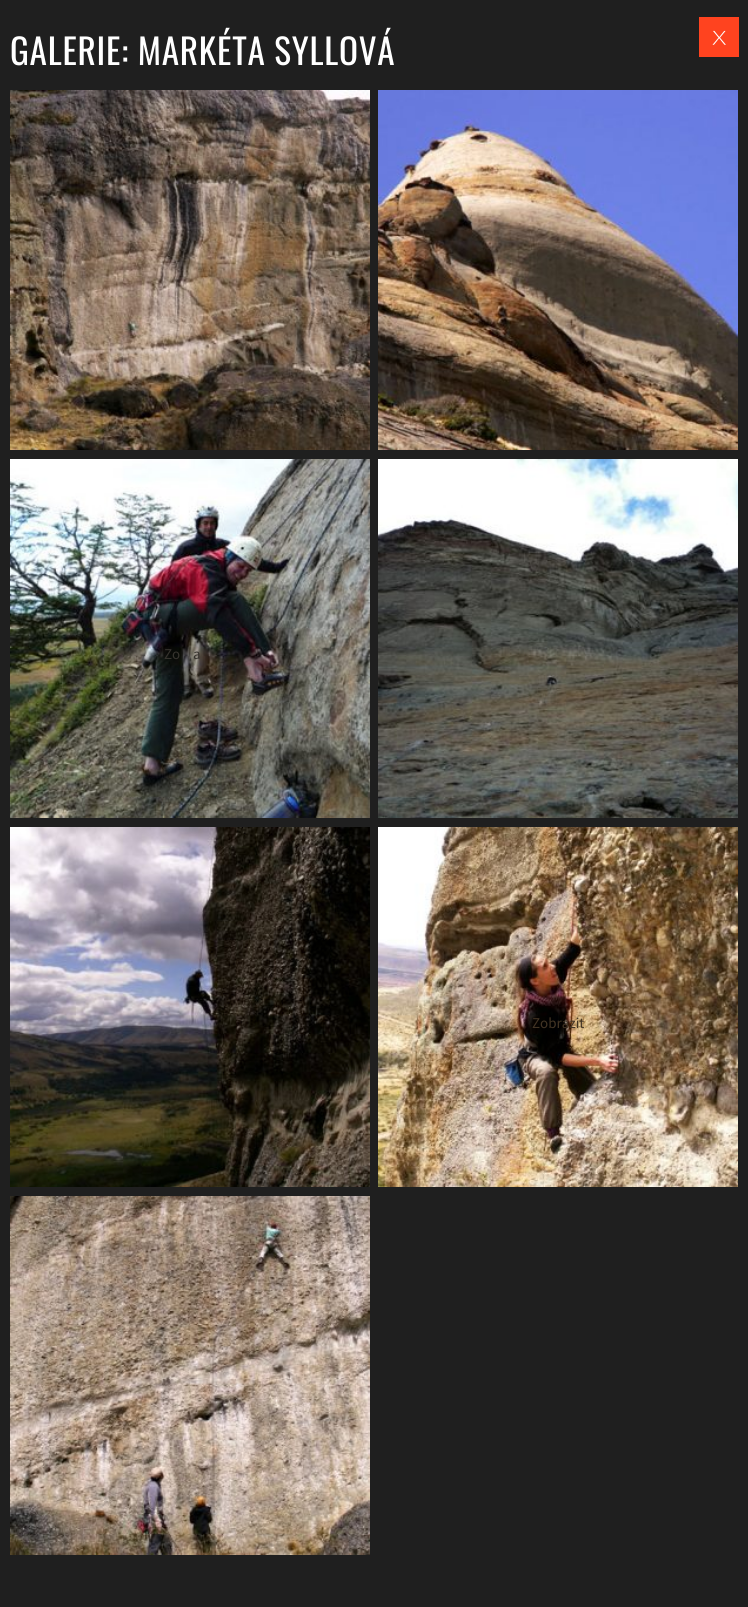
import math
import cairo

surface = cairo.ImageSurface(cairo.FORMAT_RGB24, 748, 1607)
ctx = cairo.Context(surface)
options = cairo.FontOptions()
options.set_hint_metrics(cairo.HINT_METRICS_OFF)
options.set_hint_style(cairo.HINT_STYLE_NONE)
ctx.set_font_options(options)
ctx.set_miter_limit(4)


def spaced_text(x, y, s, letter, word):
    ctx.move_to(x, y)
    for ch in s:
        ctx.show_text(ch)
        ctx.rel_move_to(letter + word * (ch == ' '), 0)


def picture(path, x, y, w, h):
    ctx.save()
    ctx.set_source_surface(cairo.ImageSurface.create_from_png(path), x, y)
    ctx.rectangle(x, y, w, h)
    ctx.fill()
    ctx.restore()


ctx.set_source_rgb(0.122, 0.122, 0.122)
ctx.paint()
ctx.select_font_face("Oswald")
ctx.set_font_size(35.25)
ctx.set_source_rgb(1, 1, 1)
spaced_text(10, 65, "GALERIE: MARKÉTA SYLLOVÁ", 0.75, 0)
ctx.set_source_rgb(1, 0.263, 0.122)
ctx.rectangle(699, 17, 40, 40)
ctx.fill()
picture("img1.png", 712, 30, 14, 15)
picture("img2.png", 10, 90, 360, 360)
picture("img3.png", 378, 90, 360, 360)
picture("img4.png", 10, 459, 360, 359)
ctx.select_font_face("Source Sans Pro")
ctx.set_font_size(15)
ctx.set_source_rgb(0.212, 0.2, 0.18)
ctx.move_to(164, 659)
ctx.show_text("Zo")
ctx.move_to(193, 659)
ctx.show_text("a")
picture("img5.png", 378, 459, 360, 359)
picture("img6.png", 10, 827, 360, 360)
picture("img7.png", 378, 827, 360, 360)
ctx.set_source_rgb(0.259, 0.204, 0.141)
ctx.move_to(532, 1028)
ctx.show_text("Zobrazit")
picture("img8.png", 10, 1196, 360, 359)
surface.write_to_png("page.png")
